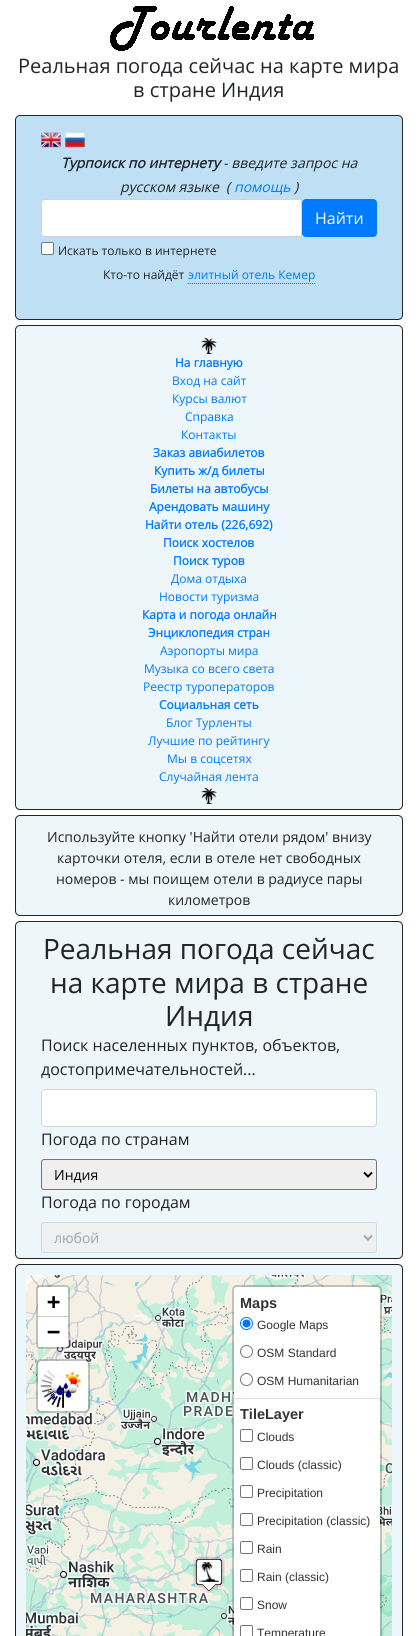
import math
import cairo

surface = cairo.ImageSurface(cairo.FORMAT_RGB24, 418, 1636)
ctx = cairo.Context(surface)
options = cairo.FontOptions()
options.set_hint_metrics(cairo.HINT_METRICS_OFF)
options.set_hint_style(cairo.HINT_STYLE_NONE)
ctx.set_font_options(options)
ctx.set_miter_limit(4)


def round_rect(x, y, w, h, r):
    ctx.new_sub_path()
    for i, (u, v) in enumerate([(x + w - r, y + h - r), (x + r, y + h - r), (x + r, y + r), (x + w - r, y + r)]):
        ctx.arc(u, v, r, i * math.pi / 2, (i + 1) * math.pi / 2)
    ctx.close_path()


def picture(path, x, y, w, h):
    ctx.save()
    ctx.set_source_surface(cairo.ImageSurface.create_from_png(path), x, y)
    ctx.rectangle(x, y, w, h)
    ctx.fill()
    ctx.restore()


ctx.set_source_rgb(1, 1, 1)
ctx.paint()
picture("img1.png", 110, 6, 204, 45)
ctx.select_font_face("Open Sans")
ctx.set_font_size(20)
ctx.set_source_rgb(0.129, 0.145, 0.161)
ctx.move_to(18, 73)
ctx.show_text("Реальная погода сейчас на карте мира")
ctx.move_to(133, 97)
ctx.show_text("в стране Индия")
ctx.set_source_rgb(0.749, 0.875, 0.957)
round_rect(15.5, 115.5, 387, 204, 4.5)
ctx.fill_preserve()
ctx.set_source_rgb(0.129, 0.145, 0.161)
ctx.set_line_width(1)
ctx.stroke()
picture("img2.png", 41, 132, 20, 16)
picture("img3.png", 65, 132, 20, 16)
ctx.select_font_face("Open Sans", cairo.FONT_SLANT_ITALIC, cairo.FONT_WEIGHT_BOLD)
ctx.set_font_size(14)
ctx.move_to(61, 168)
ctx.show_text("Турпоиск по интернету")
ctx.select_font_face("Open Sans", cairo.FONT_SLANT_ITALIC)
ctx.move_to(223, 168)
ctx.show_text("- введите запрос на")
ctx.move_to(120, 192)
ctx.show_text("русском языке")
ctx.move_to(226, 192)
ctx.show_text("(")
ctx.set_source_rgb(0, 0.482, 1)
ctx.move_to(234, 192)
ctx.show_text("помощь")
ctx.set_source_rgb(0.129, 0.145, 0.161)
ctx.move_to(294, 192)
ctx.show_text(")")
ctx.set_source_rgb(1, 1, 1)
ctx.new_path()
ctx.move_to(45, 199.5)
ctx.line_to(301.5, 199.5)
ctx.line_to(301.5, 236.5)
ctx.line_to(45, 236.5)
ctx.curve_to(43, 236.5, 41.5, 235, 41.5, 233)
ctx.line_to(41.5, 203)
ctx.curve_to(41.5, 201, 43, 199.5, 45, 199.5)
ctx.close_path()
ctx.fill_preserve()
ctx.set_source_rgb(0.808, 0.831, 0.855)
ctx.stroke()
ctx.set_source_rgb(0, 0.482, 1)
round_rect(302.5, 199.5, 74, 37, 3.5)
ctx.fill_preserve()
ctx.stroke()
ctx.select_font_face("Open Sans")
ctx.set_font_size(16)
ctx.set_source_rgb(1, 1, 1)
ctx.move_to(315, 224)
ctx.show_text("Найти")
round_rect(41.5, 242.5, 12, 12, 1.5)
ctx.fill_preserve()
ctx.set_source_rgb(0.463, 0.463, 0.463)
ctx.stroke()
ctx.set_font_size(12)
ctx.set_source_rgb(0.129, 0.145, 0.161)
ctx.move_to(58, 255)
ctx.show_text("Искать только в интернете")
ctx.move_to(103, 279)
ctx.show_text("Кто-то найдёт")
ctx.set_source_rgb(0, 0.482, 1)
ctx.move_to(188, 279)
ctx.show_text("элитный отель Кемер")
ctx.new_path()
ctx.move_to(188, 283.5)
ctx.line_to(315, 283.5)
ctx.set_dash([1, 1])
ctx.stroke()
ctx.set_source_rgb(0.929, 0.961, 0.98)
round_rect(15.5, 325.5, 387, 484, 4.5)
ctx.fill_preserve()
ctx.set_source_rgb(0.129, 0.145, 0.161)
ctx.set_dash([])
ctx.stroke()
picture("img4.png", 201, 338, 16, 16)
ctx.select_font_face("Open Sans", cairo.FONT_SLANT_NORMAL, cairo.FONT_WEIGHT_BOLD)
ctx.set_source_rgb(0, 0.482, 1)
ctx.move_to(175, 367)
ctx.show_text("На главную")
ctx.select_font_face("Open Sans")
ctx.move_to(172, 385)
ctx.show_text("Вход на сайт")
ctx.move_to(172, 403)
ctx.show_text("Курсы валют")
ctx.move_to(185, 421)
ctx.show_text("Справка")
ctx.move_to(181, 439)
ctx.show_text("Контакты")
ctx.select_font_face("Open Sans", cairo.FONT_SLANT_NORMAL, cairo.FONT_WEIGHT_BOLD)
ctx.move_to(153, 457)
ctx.show_text("Заказ авиабилетов")
ctx.move_to(154, 475)
ctx.show_text("Купить ж/д билеты")
ctx.move_to(150, 493)
ctx.show_text("Билеты на автобусы")
ctx.move_to(149, 511)
ctx.show_text("Арендовать машину")
ctx.move_to(145, 529)
ctx.show_text("Найти отель (226,692)")
ctx.move_to(163, 547)
ctx.show_text("Поиск хостелов")
ctx.move_to(173, 565)
ctx.show_text("Поиск туров")
ctx.select_font_face("Open Sans")
ctx.move_to(171, 583)
ctx.show_text("Дома отдыха")
ctx.move_to(159, 601)
ctx.show_text("Новости туризма")
ctx.select_font_face("Open Sans", cairo.FONT_SLANT_NORMAL, cairo.FONT_WEIGHT_BOLD)
ctx.move_to(142, 619)
ctx.show_text("Карта и погода онлайн")
ctx.move_to(148, 637)
ctx.show_text("Энциклопедия стран")
ctx.select_font_face("Open Sans")
ctx.move_to(160, 655)
ctx.show_text("Аэропорты мира")
ctx.move_to(144, 673)
ctx.show_text("Музыка со всего света")
ctx.move_to(143, 691)
ctx.show_text("Реестр туроператоров")
ctx.select_font_face("Open Sans", cairo.FONT_SLANT_NORMAL, cairo.FONT_WEIGHT_BOLD)
ctx.move_to(159, 709)
ctx.show_text("Социальная сеть")
ctx.select_font_face("Open Sans")
ctx.move_to(166, 727)
ctx.show_text("Блог Турленты")
ctx.move_to(148, 745)
ctx.show_text("Лучшие по рейтингу")
ctx.move_to(167, 763)
ctx.show_text("Мы в соцсетях")
ctx.move_to(159, 781)
ctx.show_text("Случайная лента")
picture("img4.png", 201, 788, 16, 16)
ctx.set_source_rgb(0.929, 0.961, 0.98)
round_rect(15.5, 815.5, 387, 100, 4.5)
ctx.fill_preserve()
ctx.set_source_rgb(0.129, 0.145, 0.161)
ctx.stroke()
ctx.set_font_size(14)
ctx.move_to(47, 842)
ctx.show_text("Используйте кнопку 'Найти отели рядом' внизу")
ctx.move_to(57, 863)
ctx.show_text("карточки отеля, если в отеле нет свободных")
ctx.move_to(56, 884)
ctx.show_text("номеров - мы поищем отели в радиусе пары")
ctx.move_to(168, 905)
ctx.show_text("километров")
ctx.set_source_rgb(0.929, 0.961, 0.98)
round_rect(15.5, 921.5, 387, 337, 4.5)
ctx.fill_preserve()
ctx.set_source_rgb(0.129, 0.145, 0.161)
ctx.stroke()
ctx.set_font_size(28)
ctx.move_to(43, 959)
ctx.show_text("Реальная погода сейчас")
ctx.move_to(50, 993)
ctx.show_text("на карте мира в стране")
ctx.move_to(165, 1026)
ctx.show_text("Индия")
ctx.set_font_size(16)
ctx.move_to(41, 1051)
ctx.show_text("Поиск населенных пунктов, объектов,")
ctx.move_to(41, 1075)
ctx.show_text("достопримечательностей...")
ctx.set_source_rgb(1, 1, 1)
round_rect(41.5, 1089.5, 335, 37, 3.5)
ctx.fill_preserve()
ctx.set_source_rgb(0.808, 0.831, 0.855)
ctx.stroke()
ctx.set_source_rgb(0.129, 0.145, 0.161)
ctx.move_to(41, 1145)
ctx.show_text("Погода по странам")
ctx.set_source_rgb(0.937, 0.937, 0.937)
round_rect(41.5, 1159.5, 335, 30, 2.5)
ctx.fill_preserve()
ctx.set_source_rgb(0.463, 0.463, 0.463)
ctx.stroke()
ctx.new_path()
ctx.move_to(364, 1172.5)
ctx.line_to(368, 1176.5)
ctx.line_to(372, 1172.5)
ctx.set_source_rgb(0, 0, 0)
ctx.set_line_width(2)
ctx.stroke()
ctx.set_font_size(14)
ctx.move_to(54, 1180)
ctx.show_text("Индия")
ctx.set_font_size(16)
ctx.set_source_rgb(0.129, 0.145, 0.161)
ctx.move_to(41, 1208)
ctx.show_text("Погода по городам")
ctx.set_source_rgb(0.933, 0.945, 0.949)
round_rect(41, 1222, 336, 31, 3)
ctx.fill()
round_rect(41.5, 1222.5, 335, 30, 2.5)
ctx.set_source_rgba(0.604, 0.612, 0.62, 0.3)
ctx.set_line_width(1)
ctx.stroke()
ctx.new_path()
ctx.move_to(364, 1235.5)
ctx.line_to(368, 1239.5)
ctx.line_to(372, 1235.5)
ctx.set_source_rgb(0.631, 0.639, 0.647)
ctx.set_line_width(2)
ctx.stroke()
ctx.set_font_size(14)
ctx.move_to(54, 1243)
ctx.show_text("любой")
ctx.set_source_rgb(0.929, 0.961, 0.98)
round_rect(15.5, 1264.5, 387, 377, 4.5)
ctx.fill_preserve()
ctx.set_source_rgb(0.129, 0.145, 0.161)
ctx.set_line_width(1)
ctx.stroke()
picture("img5.png", 26, 1275, 7, 205)
picture("img6.png", 33, 1275, 256, 205)
picture("img7.png", 289, 1275, 103, 205)
picture("img8.png", 26, 1480, 7, 156)
picture("img9.png", 33, 1480, 201, 156)
picture("img10.png", 380, 1480, 12, 156)
picture("img11.png", 193, 1556, 32, 37)
round_rect(37, 1286, 32, 62, 3)
ctx.set_source_rgba(0, 0, 0, 0.2)
ctx.set_line_width(2)
ctx.stroke()
ctx.set_source_rgb(1, 1, 1)
ctx.new_path()
ctx.move_to(40, 1287)
ctx.line_to(66, 1287)
ctx.curve_to(67, 1287, 68, 1288, 68, 1289)
ctx.line_to(68, 1317)
ctx.line_to(38, 1317)
ctx.line_to(38, 1289)
ctx.curve_to(38, 1288, 39, 1287, 40, 1287)
ctx.close_path()
ctx.fill()
ctx.set_source_rgb(0.8, 0.8, 0.8)
ctx.rectangle(38, 1316, 30, 1)
ctx.fill()
ctx.select_font_face("DejaVu Sans Mono", cairo.FONT_SLANT_NORMAL, cairo.FONT_WEIGHT_BOLD)
ctx.set_font_size(22)
ctx.set_source_rgb(0, 0, 0)
ctx.move_to(47, 1309)
ctx.show_text("+")
ctx.set_source_rgb(1, 1, 1)
ctx.new_path()
ctx.move_to(38, 1317)
ctx.line_to(68, 1317)
ctx.line_to(68, 1345)
ctx.curve_to(68, 1346, 67, 1347, 66, 1347)
ctx.line_to(40, 1347)
ctx.curve_to(39, 1347, 38, 1346, 38, 1345)
ctx.close_path()
ctx.fill()
ctx.set_source_rgb(0, 0, 0)
ctx.move_to(47, 1339)
ctx.show_text("−")
ctx.set_source_rgb(1, 1, 1)
round_rect(38, 1361, 50, 50, 3)
ctx.fill()
picture("img12.png", 44, 1371, 38, 29)
round_rect(37, 1360, 52, 52, 4)
ctx.set_source_rgba(0, 0, 0, 0.2)
ctx.stroke()
picture("img13.png", 41, 1370, 23, 38)
ctx.set_source_rgb(1, 1, 1)
round_rect(234, 1287, 146, 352, 3)
ctx.fill()
round_rect(233, 1286, 148, 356, 4)
ctx.set_source_rgba(0, 0, 0, 0.2)
ctx.stroke()
ctx.select_font_face("Liberation Sans", cairo.FONT_SLANT_NORMAL, cairo.FONT_WEIGHT_BOLD)
ctx.set_font_size(14.5)
ctx.set_source_rgb(0.2, 0.2, 0.2)
ctx.move_to(240, 1308)
ctx.show_text("Maps")
ctx.new_path()
ctx.arc(246.5, 1323.5, 6, 0, 2 * math.pi)
ctx.set_source_rgb(0, 0.459, 1)
ctx.set_line_width(1)
ctx.stroke()
ctx.arc(246.5, 1323.5, 4, 0, 2 * math.pi)
ctx.fill()
ctx.select_font_face("Liberation Sans")
ctx.set_font_size(12)
ctx.set_source_rgb(0.2, 0.2, 0.2)
ctx.move_to(257, 1329)
ctx.show_text("Google Maps")
ctx.new_path()
ctx.arc(246.5, 1351.5, 6, 0, 2 * math.pi)
ctx.set_source_rgb(0.463, 0.463, 0.463)
ctx.stroke()
ctx.set_source_rgb(0.2, 0.2, 0.2)
ctx.move_to(257, 1357)
ctx.show_text("OSM Standard")
ctx.new_path()
ctx.arc(246.5, 1379.5, 6, 0, 2 * math.pi)
ctx.set_source_rgb(0.463, 0.463, 0.463)
ctx.stroke()
ctx.set_source_rgb(0.2, 0.2, 0.2)
ctx.move_to(257, 1385)
ctx.show_text("OSM Humanitarian")
ctx.set_source_rgb(0.867, 0.867, 0.867)
ctx.rectangle(234, 1398, 146, 1)
ctx.fill()
ctx.select_font_face("Liberation Sans", cairo.FONT_SLANT_NORMAL, cairo.FONT_WEIGHT_BOLD)
ctx.set_font_size(14.5)
ctx.set_source_rgb(0.2, 0.2, 0.2)
ctx.move_to(240, 1419)
ctx.show_text("TileLayer")
round_rect(240.5, 1429.5, 12, 12, 1.5)
ctx.set_source_rgb(0.463, 0.463, 0.463)
ctx.stroke()
ctx.select_font_face("Liberation Sans")
ctx.set_font_size(12)
ctx.set_source_rgb(0.2, 0.2, 0.2)
ctx.move_to(257, 1441)
ctx.show_text("Clouds")
round_rect(240.5, 1457.5, 12, 12, 1.5)
ctx.set_source_rgb(0.463, 0.463, 0.463)
ctx.stroke()
ctx.set_source_rgb(0.2, 0.2, 0.2)
ctx.move_to(257, 1469)
ctx.show_text("Clouds (classic)")
round_rect(240.5, 1485.5, 12, 12, 1.5)
ctx.set_source_rgb(0.463, 0.463, 0.463)
ctx.stroke()
ctx.set_source_rgb(0.2, 0.2, 0.2)
ctx.move_to(257, 1497)
ctx.show_text("Precipitation")
round_rect(240.5, 1513.5, 12, 12, 1.5)
ctx.set_source_rgb(0.463, 0.463, 0.463)
ctx.stroke()
ctx.set_source_rgb(0.2, 0.2, 0.2)
ctx.move_to(257, 1525)
ctx.show_text("Precipitation (classic)")
round_rect(240.5, 1541.5, 12, 12, 1.5)
ctx.set_source_rgb(0.463, 0.463, 0.463)
ctx.stroke()
ctx.set_source_rgb(0.2, 0.2, 0.2)
ctx.move_to(257, 1553)
ctx.show_text("Rain")
round_rect(240.5, 1569.5, 12, 12, 1.5)
ctx.set_source_rgb(0.463, 0.463, 0.463)
ctx.stroke()
ctx.set_source_rgb(0.2, 0.2, 0.2)
ctx.move_to(257, 1581)
ctx.show_text("Rain (classic)")
round_rect(240.5, 1597.5, 12, 12, 1.5)
ctx.set_source_rgb(0.463, 0.463, 0.463)
ctx.stroke()
ctx.set_source_rgb(0.2, 0.2, 0.2)
ctx.move_to(257, 1609)
ctx.show_text("Snow")
round_rect(240.5, 1625.5, 12, 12, 1.5)
ctx.set_source_rgb(0.463, 0.463, 0.463)
ctx.stroke()
ctx.set_source_rgb(0.2, 0.2, 0.2)
ctx.move_to(257, 1637)
ctx.show_text("Temperature")
surface.write_to_png("page.png")
